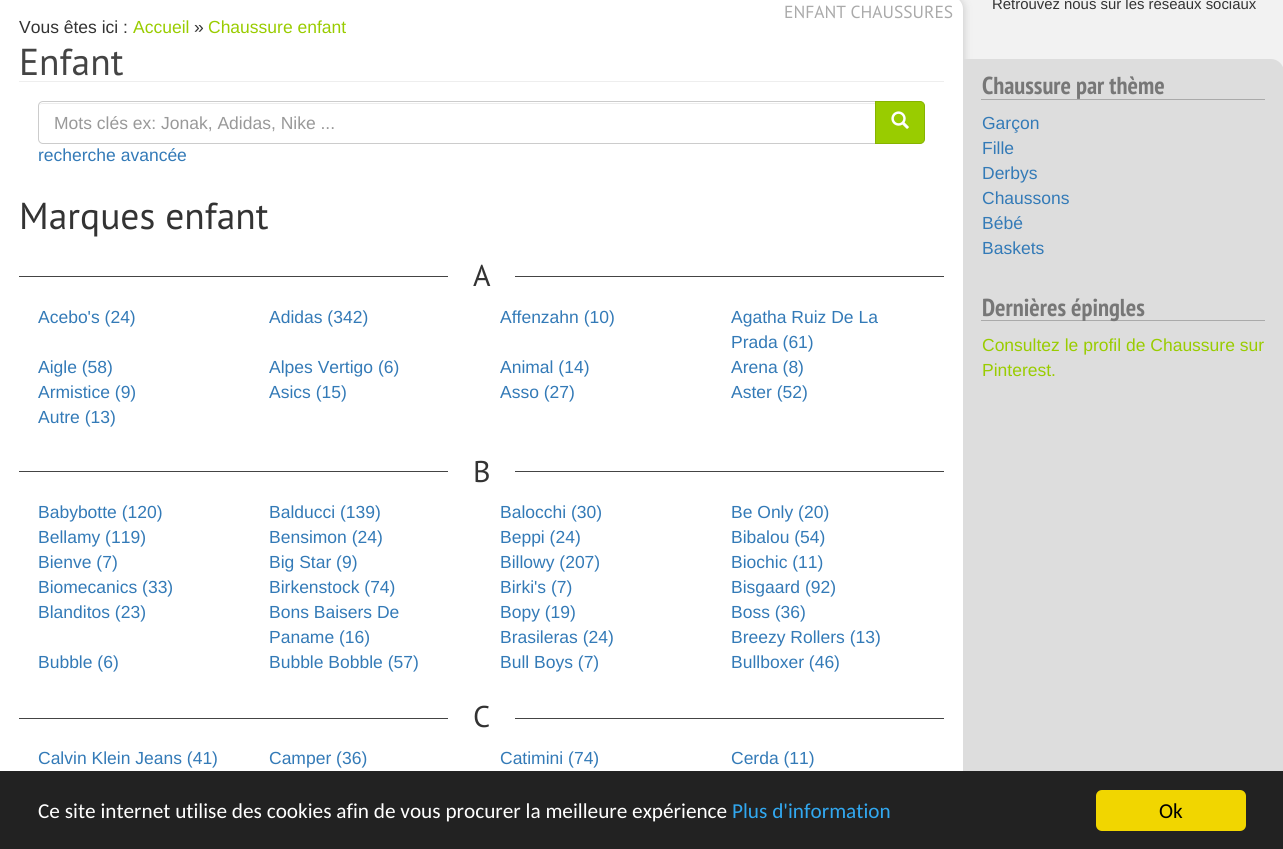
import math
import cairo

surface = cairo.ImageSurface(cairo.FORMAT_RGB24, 1283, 849)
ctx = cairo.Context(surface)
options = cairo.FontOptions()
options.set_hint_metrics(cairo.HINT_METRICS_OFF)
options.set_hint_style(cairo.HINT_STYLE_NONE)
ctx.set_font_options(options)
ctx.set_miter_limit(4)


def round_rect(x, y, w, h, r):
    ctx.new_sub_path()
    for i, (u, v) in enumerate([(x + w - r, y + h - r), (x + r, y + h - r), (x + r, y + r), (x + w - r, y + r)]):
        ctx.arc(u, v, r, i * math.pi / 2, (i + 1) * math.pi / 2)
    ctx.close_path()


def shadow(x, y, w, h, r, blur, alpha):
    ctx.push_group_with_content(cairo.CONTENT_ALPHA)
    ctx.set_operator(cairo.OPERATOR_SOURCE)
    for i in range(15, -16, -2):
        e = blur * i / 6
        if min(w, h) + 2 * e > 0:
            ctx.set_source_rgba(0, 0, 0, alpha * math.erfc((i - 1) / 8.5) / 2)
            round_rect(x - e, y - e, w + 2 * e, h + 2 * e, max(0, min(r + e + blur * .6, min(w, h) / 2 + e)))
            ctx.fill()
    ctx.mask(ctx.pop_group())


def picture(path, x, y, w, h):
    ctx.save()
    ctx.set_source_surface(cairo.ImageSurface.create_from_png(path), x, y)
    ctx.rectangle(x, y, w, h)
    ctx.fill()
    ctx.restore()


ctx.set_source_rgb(0.949, 0.949, 0.949)
ctx.paint()
ctx.set_source_rgb(0.8, 0.8, 0.8)
shadow(1, -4, 963, 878, 13, 4, 1)
ctx.set_source_rgb(1, 1, 1)
ctx.new_path()
ctx.move_to(0, -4)
ctx.line_to(950, -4)
ctx.curve_to(957, -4, 963, 2, 963, 9)
ctx.line_to(963, 849)
ctx.curve_to(963, 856, 957, 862, 950, 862)
ctx.line_to(0, 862)
ctx.close_path()
ctx.fill()
ctx.select_font_face("PT Sans")
ctx.set_font_size(17.5)
ctx.set_source_rgb(0.667, 0.667, 0.667)
ctx.move_to(784, 18)
ctx.show_text("ENFANT CHAUSSURES")
ctx.select_font_face("Liberation Sans")
ctx.set_source_rgb(0.2, 0.2, 0.2)
ctx.move_to(19, 33)
ctx.show_text("Vous êtes ici :")
ctx.set_source_rgb(0.6, 0.8, 0)
ctx.move_to(133, 33)
ctx.show_text("Accueil")
ctx.set_source_rgb(0.2, 0.2, 0.2)
ctx.move_to(194, 33)
ctx.show_text("»")
ctx.set_source_rgb(0.6, 0.8, 0)
ctx.move_to(208, 33)
ctx.show_text("Chaussure enfant")
ctx.set_source_rgb(0.933, 0.933, 0.933)
ctx.rectangle(19, 81, 925, 1)
ctx.fill()
ctx.select_font_face("PT Sans")
ctx.set_font_size(37.5)
ctx.set_source_rgb(0.267, 0.267, 0.267)
ctx.move_to(19, 75)
ctx.show_text("Enfant")
ctx.set_source_rgb(0.925, 0.925, 0.925)
ctx.new_path()
ctx.move_to(42, 104)
ctx.line_to(875, 104)
ctx.line_to(875, 103)
ctx.line_to(43, 103)
ctx.curve_to(40, 103, 39, 105, 39, 108)
ctx.curve_to(39, 105, 40, 104, 42, 104)
ctx.close_path()
ctx.fill()
ctx.new_path()
ctx.move_to(43, 101.5)
ctx.line_to(875.5, 101.5)
ctx.line_to(875.5, 143.5)
ctx.line_to(43, 143.5)
ctx.curve_to(40.5, 143.5, 38.5, 141.5, 38.5, 139)
ctx.line_to(38.5, 106)
ctx.curve_to(38.5, 103.5, 40.5, 101.5, 43, 101.5)
ctx.close_path()
ctx.set_source_rgb(0.8, 0.8, 0.8)
ctx.set_line_width(1)
ctx.stroke()
ctx.select_font_face("Liberation Sans")
ctx.set_font_size(17.5)
ctx.set_source_rgb(0.6, 0.6, 0.6)
ctx.move_to(54, 129)
ctx.show_text("Mots clés ex: Jonak, Adidas, Nike ...")
ctx.set_source_rgb(0.6, 0.8, 0)
ctx.new_path()
ctx.move_to(875.5, 101.5)
ctx.line_to(920, 101.5)
ctx.curve_to(922.5, 101.5, 924.5, 103.5, 924.5, 106)
ctx.line_to(924.5, 139)
ctx.curve_to(924.5, 141.5, 922.5, 143.5, 920, 143.5)
ctx.line_to(875.5, 143.5)
ctx.close_path()
ctx.fill_preserve()
ctx.set_source_rgb(0.525, 0.702, 0)
ctx.stroke()
picture("img1.png", 891, 111, 18, 18)
ctx.set_source_rgb(0.2, 0.478, 0.718)
ctx.move_to(38, 161)
ctx.show_text("recherche avancée")
ctx.select_font_face("PT Sans")
ctx.set_font_size(37.5)
ctx.set_source_rgb(0.2, 0.2, 0.2)
ctx.move_to(19, 229)
ctx.show_text("Marques enfant")
ctx.set_source_rgb(0.267, 0.267, 0.267)
ctx.rectangle(19, 276, 429, 1)
ctx.fill()
ctx.set_font_size(30)
ctx.set_source_rgb(0.2, 0.2, 0.2)
ctx.move_to(473, 286)
ctx.show_text("A")
ctx.set_source_rgb(0.267, 0.267, 0.267)
ctx.rectangle(515, 276, 429, 1)
ctx.fill()
ctx.select_font_face("Liberation Sans")
ctx.set_font_size(17.5)
ctx.set_source_rgb(0.2, 0.478, 0.718)
ctx.move_to(38, 323)
ctx.show_text("Acebo's (24)")
ctx.move_to(269, 323)
ctx.show_text("Adidas (342)")
ctx.move_to(500, 323)
ctx.show_text("Affenzahn (10)")
ctx.move_to(731, 323)
ctx.show_text("Agatha Ruiz De La")
ctx.move_to(731, 348)
ctx.show_text("Prada (61)")
ctx.move_to(38, 373)
ctx.show_text("Aigle (58)")
ctx.move_to(269, 373)
ctx.show_text("Alpes Vertigo (6)")
ctx.move_to(500, 373)
ctx.show_text("Animal (14)")
ctx.move_to(731, 373)
ctx.show_text("Arena (8)")
ctx.move_to(38, 398)
ctx.show_text("Armistice (9)")
ctx.move_to(269, 398)
ctx.show_text("Asics (15)")
ctx.move_to(500, 398)
ctx.show_text("Asso (27)")
ctx.move_to(731, 398)
ctx.show_text("Aster (52)")
ctx.move_to(38, 423)
ctx.show_text("Autre (13)")
ctx.set_source_rgb(0.267, 0.267, 0.267)
ctx.rectangle(19, 471, 429, 1)
ctx.fill()
ctx.select_font_face("PT Sans")
ctx.set_font_size(30)
ctx.set_source_rgb(0.2, 0.2, 0.2)
ctx.move_to(473, 482)
ctx.show_text("B")
ctx.set_source_rgb(0.267, 0.267, 0.267)
ctx.rectangle(515, 471, 429, 1)
ctx.fill()
ctx.select_font_face("Liberation Sans")
ctx.set_font_size(17.5)
ctx.set_source_rgb(0.2, 0.478, 0.718)
ctx.move_to(38, 518)
ctx.show_text("Babybotte (120)")
ctx.move_to(269, 518)
ctx.show_text("Balducci (139)")
ctx.move_to(500, 518)
ctx.show_text("Balocchi (30)")
ctx.move_to(731, 518)
ctx.show_text("Be Only (20)")
ctx.move_to(38, 543)
ctx.show_text("Bellamy (119)")
ctx.move_to(269, 543)
ctx.show_text("Bensimon (24)")
ctx.move_to(500, 543)
ctx.show_text("Beppi (24)")
ctx.move_to(731, 543)
ctx.show_text("Bibalou (54)")
ctx.move_to(38, 568)
ctx.show_text("Bienve (7)")
ctx.move_to(269, 568)
ctx.show_text("Big Star (9)")
ctx.move_to(500, 568)
ctx.show_text("Billowy (207)")
ctx.move_to(731, 568)
ctx.show_text("Biochic (11)")
ctx.move_to(38, 593)
ctx.show_text("Biomecanics (33)")
ctx.move_to(269, 593)
ctx.show_text("Birkenstock (74)")
ctx.move_to(500, 593)
ctx.show_text("Birki's (7)")
ctx.move_to(731, 593)
ctx.show_text("Bisgaard (92)")
ctx.move_to(38, 618)
ctx.show_text("Blanditos (23)")
ctx.move_to(269, 618)
ctx.show_text("Bons Baisers De")
ctx.move_to(269, 643)
ctx.show_text("Paname (16)")
ctx.move_to(500, 618)
ctx.show_text("Bopy (19)")
ctx.move_to(731, 618)
ctx.show_text("Boss (36)")
ctx.move_to(500, 643)
ctx.show_text("Brasileras (24)")
ctx.move_to(731, 643)
ctx.show_text("Breezy Rollers (13)")
ctx.move_to(38, 668)
ctx.show_text("Bubble (6)")
ctx.move_to(269, 668)
ctx.show_text("Bubble Bobble (57)")
ctx.move_to(500, 668)
ctx.show_text("Bull Boys (7)")
ctx.move_to(731, 668)
ctx.show_text("Bullboxer (46)")
ctx.set_source_rgb(0.267, 0.267, 0.267)
ctx.rectangle(19, 718, 429, 1)
ctx.fill()
ctx.select_font_face("PT Sans")
ctx.set_font_size(30)
ctx.set_source_rgb(0.2, 0.2, 0.2)
ctx.move_to(473, 727)
ctx.show_text("C")
ctx.set_source_rgb(0.267, 0.267, 0.267)
ctx.rectangle(515, 718, 429, 1)
ctx.fill()
ctx.select_font_face("Liberation Sans")
ctx.set_font_size(17.5)
ctx.set_source_rgb(0.2, 0.478, 0.718)
ctx.move_to(38, 764)
ctx.show_text("Calvin Klein Jeans (41)")
ctx.move_to(269, 764)
ctx.show_text("Camper (36)")
ctx.move_to(500, 764)
ctx.show_text("Catimini (74)")
ctx.move_to(731, 764)
ctx.show_text("Cerda (11)")
ctx.set_source_rgb(0.867, 0.867, 0.867)
ctx.new_path()
ctx.move_to(963, 59)
ctx.line_to(1271, 59)
ctx.curve_to(1278, 59, 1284, 65, 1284, 72)
ctx.line_to(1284, 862)
ctx.line_to(963, 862)
ctx.close_path()
ctx.fill()
ctx.set_font_size(14.9)
ctx.set_source_rgb(0.2, 0.2, 0.2)
ctx.move_to(992, 9)
ctx.show_text("Retrouvez nous sur les réseaux sociaux")
ctx.set_source_rgb(0.667, 0.667, 0.667)
ctx.rectangle(981, 99, 284, 1)
ctx.fill()
ctx.select_font_face("PT Sans Narrow", cairo.FONT_SLANT_NORMAL, cairo.FONT_WEIGHT_BOLD)
ctx.set_font_size(24.5)
ctx.set_source_rgb(0.467, 0.467, 0.467)
ctx.move_to(982, 94)
ctx.show_text("Chaussure par thème")
ctx.select_font_face("Liberation Sans")
ctx.set_font_size(17.5)
ctx.set_source_rgb(0.2, 0.478, 0.718)
ctx.move_to(982, 129)
ctx.show_text("Garçon")
ctx.move_to(982, 154)
ctx.show_text("Fille")
ctx.move_to(982, 179)
ctx.show_text("Derbys")
ctx.move_to(982, 204)
ctx.show_text("Chaussons")
ctx.move_to(982, 229)
ctx.show_text("Bébé")
ctx.move_to(982, 254)
ctx.show_text("Baskets")
ctx.set_source_rgb(0.667, 0.667, 0.667)
ctx.rectangle(981, 320, 284, 1)
ctx.fill()
ctx.select_font_face("PT Sans Narrow", cairo.FONT_SLANT_NORMAL, cairo.FONT_WEIGHT_BOLD)
ctx.set_font_size(24.5)
ctx.set_source_rgb(0.467, 0.467, 0.467)
ctx.move_to(982, 316)
ctx.show_text("Dernières épingles")
ctx.select_font_face("Liberation Sans")
ctx.set_font_size(17.5)
ctx.set_source_rgb(0.6, 0.8, 0)
ctx.move_to(982, 351)
ctx.show_text("Consultez le profil de Chaussure sur")
ctx.move_to(982, 376)
ctx.show_text("Pinterest.")
ctx.set_source_rgb(0.133, 0.133, 0.133)
ctx.rectangle(0, 771, 1283, 78)
ctx.fill()
ctx.select_font_face("Carlito")
ctx.set_font_size(21.25)
ctx.set_source_rgb(1, 1, 1)
ctx.move_to(38, 818)
ctx.show_text("Ce site internet utilise des cookies afin de vous procurer la meilleure expérience")
ctx.set_source_rgb(0.192, 0.659, 0.941)
ctx.move_to(732, 818)
ctx.show_text("Plus d'information")
ctx.set_source_rgb(0.945, 0.839, 0)
round_rect(1096, 790, 150, 41, 6)
ctx.fill()
ctx.set_source_rgb(0, 0, 0)
ctx.move_to(1159, 818)
ctx.show_text("Ok")
surface.write_to_png("page.png")
